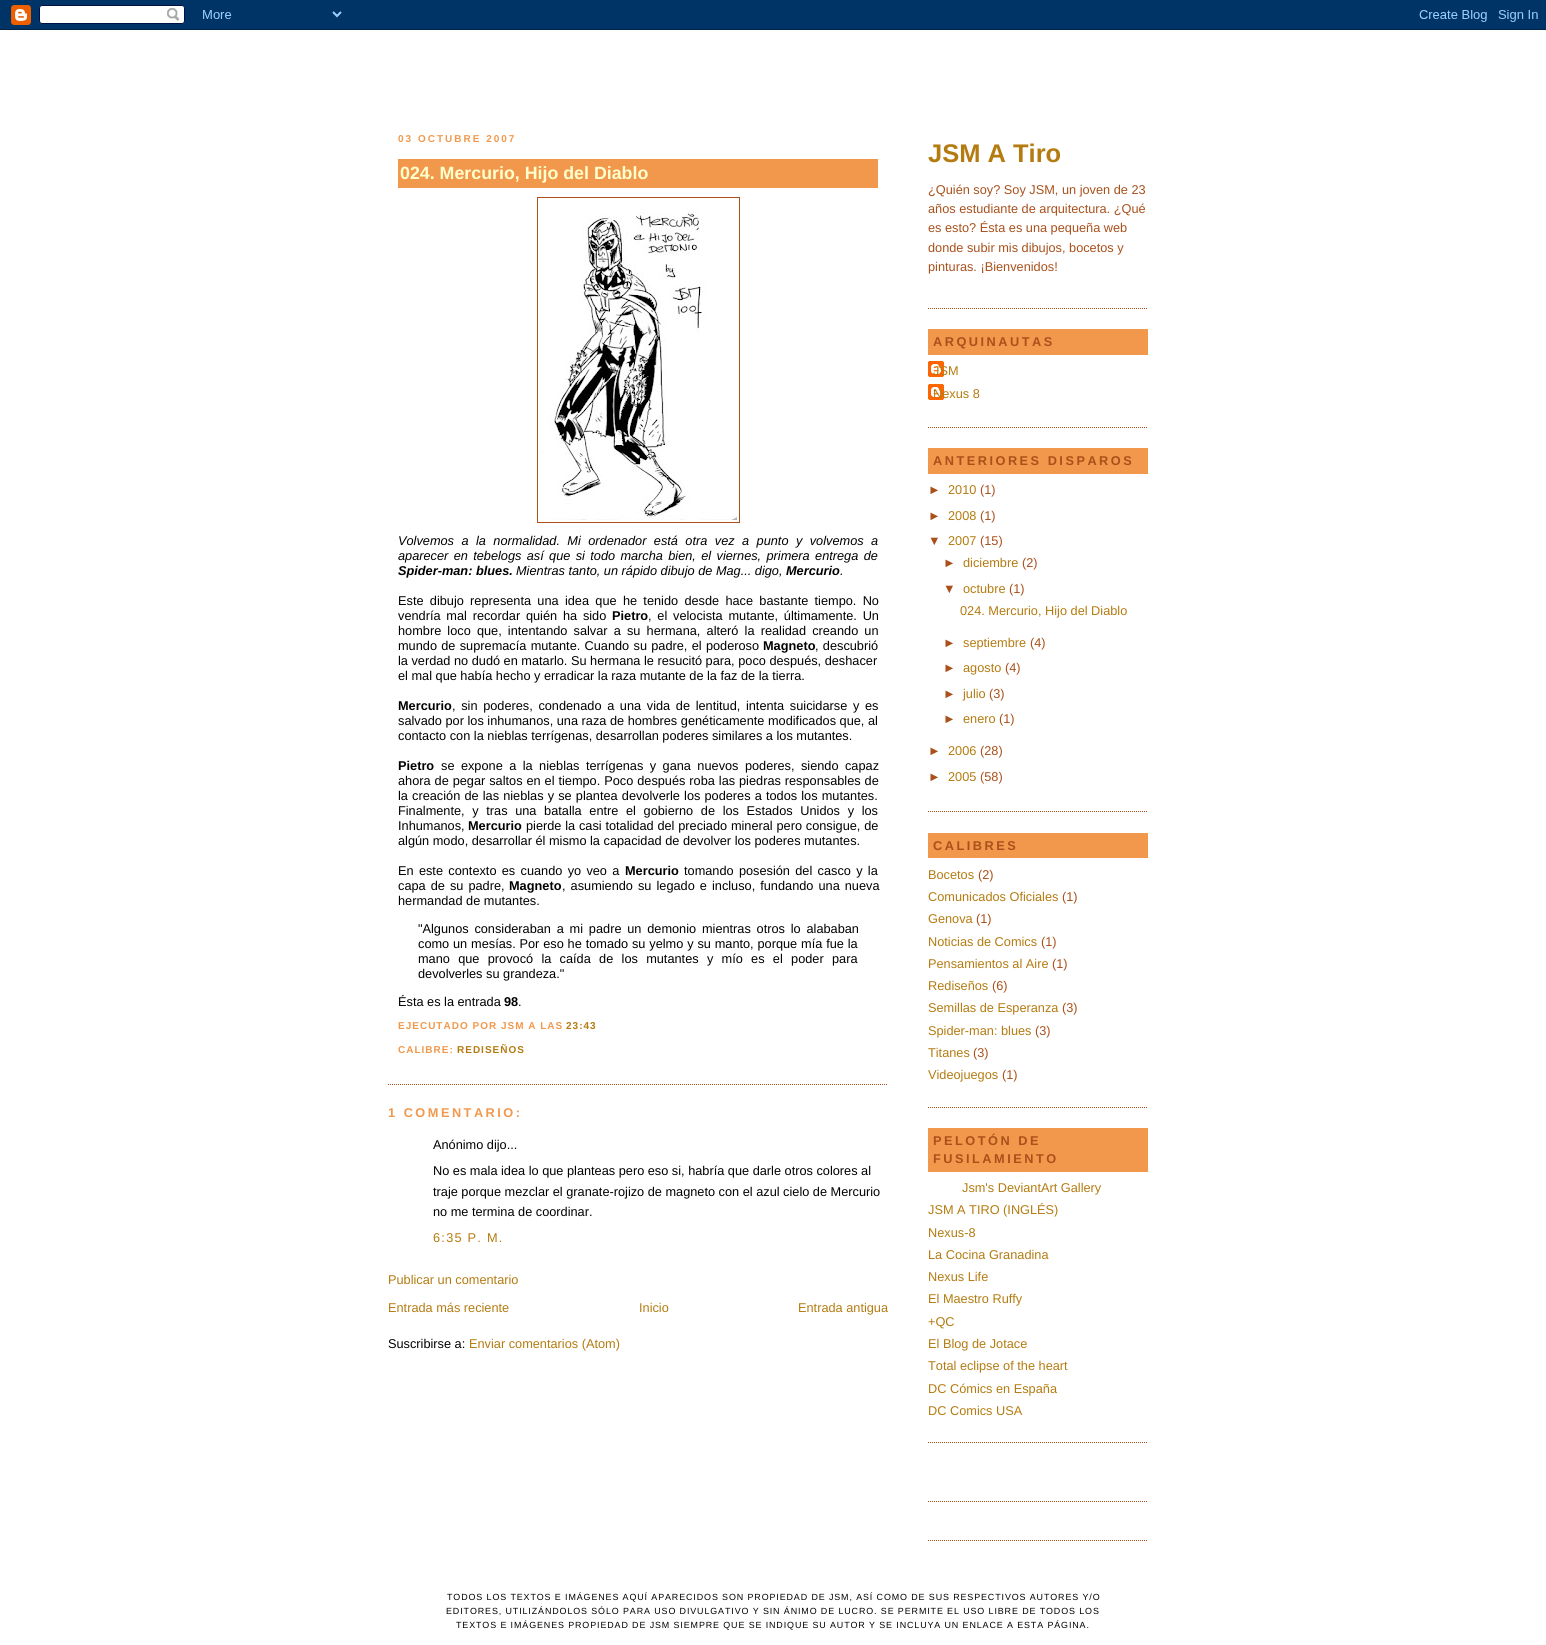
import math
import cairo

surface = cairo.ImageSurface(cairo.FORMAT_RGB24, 1546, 1645)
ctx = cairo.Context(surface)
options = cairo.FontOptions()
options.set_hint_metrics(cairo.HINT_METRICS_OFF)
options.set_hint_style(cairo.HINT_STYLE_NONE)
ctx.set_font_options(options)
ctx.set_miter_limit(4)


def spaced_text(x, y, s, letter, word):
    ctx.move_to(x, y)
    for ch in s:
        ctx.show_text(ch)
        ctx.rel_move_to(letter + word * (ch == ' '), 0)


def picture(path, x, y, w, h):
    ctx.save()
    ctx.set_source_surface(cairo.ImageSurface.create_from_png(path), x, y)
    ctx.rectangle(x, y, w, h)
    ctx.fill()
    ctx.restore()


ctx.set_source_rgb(1, 1, 1)
ctx.paint()
picture("img1.png", 0, 0, 1546, 30)
ctx.select_font_face("Liberation Sans", cairo.FONT_SLANT_NORMAL, cairo.FONT_WEIGHT_BOLD)
ctx.set_font_size(10)
ctx.set_source_rgb(0.949, 0.596, 0.298)
spaced_text(398, 142, "03 OCTUBRE 2007", 2, 0)
ctx.new_path()
ctx.move_to(388, 1084.5)
ctx.line_to(888, 1084.5)
ctx.set_source_rgb(0.663, 0.314, 0.106)
ctx.set_line_width(1)
ctx.set_dash([1, 1])
ctx.stroke()
ctx.set_source_rgb(0.949, 0.596, 0.298)
ctx.rectangle(398, 159, 480, 29)
ctx.fill()
ctx.set_font_size(17.8)
ctx.set_source_rgb(1, 1, 0.8)
ctx.move_to(400, 179)
ctx.show_text("024. Mercurio, Hijo del Diablo")
ctx.rectangle(537.5, 197.5, 202, 325)
ctx.set_source_rgb(0.663, 0.314, 0.106)
ctx.set_dash([])
ctx.stroke()
picture("img2.png", 540, 208, 197, 312)
ctx.select_font_face("Liberation Sans", cairo.FONT_SLANT_ITALIC)
ctx.set_font_size(12.75)
ctx.set_source_rgb(0, 0, 0)
spaced_text(398, 545, "Volvemos a la normalidad. Mi ordenador está otra vez a punto y volvemos a", 0, 3.9)
spaced_text(398, 560, "aparecer en tebelogs así que si todo marcha bien, el viernes, primera entrega de", 0, 1.8)
ctx.select_font_face("Liberation Sans", cairo.FONT_SLANT_ITALIC, cairo.FONT_WEIGHT_BOLD)
ctx.move_to(398, 575)
ctx.show_text("Spider-man: blues.")
ctx.select_font_face("Liberation Sans", cairo.FONT_SLANT_ITALIC)
ctx.move_to(516, 575)
ctx.show_text("Mientras tanto, un rápido dibujo de Mag... digo,")
ctx.select_font_face("Liberation Sans", cairo.FONT_SLANT_ITALIC, cairo.FONT_WEIGHT_BOLD)
ctx.move_to(786, 575)
ctx.show_text("Mercurio")
ctx.select_font_face("Liberation Sans", cairo.FONT_SLANT_ITALIC)
ctx.move_to(840, 575)
ctx.show_text(".")
ctx.select_font_face("Liberation Sans")
spaced_text(398, 605, "Este dibujo representa una idea que he tenido desde hace bastante tiempo. No", 0, 2.75)
spaced_text(398, 620, "vendría mal recordar quién ha sido", 0, 2.25)
ctx.select_font_face("Liberation Sans", cairo.FONT_SLANT_NORMAL, cairo.FONT_WEIGHT_BOLD)
ctx.move_to(612, 620)
ctx.show_text("Pietro")
ctx.select_font_face("Liberation Sans")
spaced_text(648, 620, ", el velocista mutante, últimamente. Un", 0, 2.25)
spaced_text(398, 635, "hombre loco que, intentando salvar a su hermana, alteró la realidad creando un", 0, 2.6)
spaced_text(398, 650, "mundo de supremacía mutante. Cuando su padre, el poderoso", 0, 0.75)
ctx.select_font_face("Liberation Sans", cairo.FONT_SLANT_NORMAL, cairo.FONT_WEIGHT_BOLD)
ctx.move_to(763, 650)
ctx.show_text("Magneto")
ctx.select_font_face("Liberation Sans")
spaced_text(815, 650, ", descubrió", 0, 0.75)
ctx.move_to(398, 665)
ctx.show_text("la verdad no dudó en matarlo. Su hermana le resucitó para, poco después, deshacer")
ctx.move_to(398, 680)
ctx.show_text("el mal que había hecho y erradicar la raza mutante de la faz de la tierra.")
ctx.select_font_face("Liberation Sans", cairo.FONT_SLANT_NORMAL, cairo.FONT_WEIGHT_BOLD)
ctx.move_to(398, 710)
ctx.show_text("Mercurio")
ctx.select_font_face("Liberation Sans")
spaced_text(452, 710, ", sin poderes, condenado a una vida de lentitud, intenta suicidarse y es", 0, 2.1)
ctx.move_to(398, 725)
ctx.show_text("salvado por los inhumanos, una raza de hombres genéticamente modificados que, al")
ctx.move_to(398, 740)
ctx.show_text("contacto con la nieblas terrígenas, desarrollan poderes similares a los mutantes.")
ctx.select_font_face("Liberation Sans", cairo.FONT_SLANT_NORMAL, cairo.FONT_WEIGHT_BOLD)
ctx.move_to(398, 770)
ctx.show_text("Pietro")
ctx.select_font_face("Liberation Sans")
spaced_text(441, 770, "se expone a la nieblas terrígenas y gana nuevos poderes, siendo capaz", 0, 2.9)
spaced_text(398, 785, "ahora de pegar saltos en el tiempo. Poco después roba las piedras responsables de", 0, 0.4)
spaced_text(398, 800, "la creación de las nieblas y se plantea devolverle los poderes a todos los mutantes.", 0, 0.6)
spaced_text(398, 815, "Finalmente, y tras una batalla entre el gobierno de los Estados Unidos y los", 0, 4.1)
ctx.move_to(398, 830)
ctx.show_text("Inhumanos,")
ctx.select_font_face("Liberation Sans", cairo.FONT_SLANT_NORMAL, cairo.FONT_WEIGHT_BOLD)
ctx.move_to(468, 830)
ctx.show_text("Mercurio")
ctx.select_font_face("Liberation Sans")
spaced_text(526, 830, "pierde la casi totalidad del preciado mineral pero consigue, de", 0, 0.25)
ctx.move_to(398, 845)
ctx.show_text("algún modo, desarrollar él mismo la capacidad de devolver los poderes mutantes.")
spaced_text(398, 875, "En este contexto es cuando yo veo a", 0, 1.75)
ctx.select_font_face("Liberation Sans", cairo.FONT_SLANT_NORMAL, cairo.FONT_WEIGHT_BOLD)
ctx.move_to(625, 875)
ctx.show_text("Mercurio")
ctx.select_font_face("Liberation Sans")
spaced_text(684, 875, "tomando posesión del casco y la", 0, 1.75)
spaced_text(398, 890, "capa de su padre,", 0, 1.5)
ctx.select_font_face("Liberation Sans", cairo.FONT_SLANT_NORMAL, cairo.FONT_WEIGHT_BOLD)
ctx.move_to(509, 890)
ctx.show_text("Magneto")
ctx.select_font_face("Liberation Sans")
spaced_text(562, 890, ", asumiendo su legado e incluso, fundando una nueva", 0, 1.5)
ctx.move_to(398, 905)
ctx.show_text("hermandad de mutantes.")
spaced_text(418, 933, "\"Algunos consideraban a mi padre un demonio mientras otros lo alababan", 0, 2.25)
spaced_text(418, 948, "como un mesías. Por eso he tomado su yelmo y su manto, porque mía fue la", 0, 0.3)
spaced_text(418, 963, "mano que provocó la caída de los mutantes y mío es el poder para", 0, 4.75)
ctx.move_to(418, 978)
ctx.show_text("devolverles su grandeza.\"")
ctx.move_to(398, 1006)
ctx.show_text("Ésta es la entrada")
ctx.select_font_face("Liberation Sans", cairo.FONT_SLANT_NORMAL, cairo.FONT_WEIGHT_BOLD)
ctx.move_to(504, 1006)
ctx.show_text("98")
ctx.select_font_face("Liberation Sans")
ctx.move_to(518, 1006)
ctx.show_text(".")
ctx.select_font_face("Liberation Sans", cairo.FONT_SLANT_NORMAL, cairo.FONT_WEIGHT_BOLD)
ctx.set_font_size(10)
ctx.set_source_rgb(0.949, 0.596, 0.298)
spaced_text(398, 1029, "EJECUTADO POR JSM A LAS", 1, 0)
ctx.set_source_rgb(0.706, 0.482, 0.063)
spaced_text(566, 1029, "23:43", 1, 0)
ctx.set_source_rgb(0.949, 0.596, 0.298)
spaced_text(398, 1053, "CALIBRE:", 1, 0)
ctx.set_source_rgb(0.706, 0.482, 0.063)
spaced_text(457, 1053, "REDISEÑOS", 1, 0)
ctx.set_font_size(12.75)
ctx.set_source_rgb(0.949, 0.596, 0.298)
spaced_text(388, 1117, "1 COMENTARIO:", 2.5, 0)
ctx.select_font_face("Liberation Sans")
ctx.set_source_rgb(0, 0, 0)
ctx.move_to(433, 1149)
ctx.show_text("Anónimo dijo...")
ctx.move_to(433, 1175)
ctx.show_text("No es mala idea lo que planteas pero eso si, habría que darle otros colores al")
ctx.move_to(433, 1196)
ctx.show_text("traje porque mezclar el granate-rojizo de magneto con el azul cielo de Mercurio")
ctx.move_to(433, 1216)
ctx.show_text("no me termina de coordinar.")
ctx.set_source_rgb(0.706, 0.482, 0.063)
spaced_text(433, 1242, "6:35 P. M.", 1.25, 0)
ctx.move_to(388, 1284)
ctx.show_text("Publicar un comentario")
ctx.move_to(388, 1312)
ctx.show_text("Entrada más reciente")
ctx.move_to(639, 1312)
ctx.show_text("Inicio")
ctx.move_to(798, 1312)
ctx.show_text("Entrada antigua")
ctx.set_source_rgb(0, 0, 0)
ctx.move_to(388, 1348)
ctx.show_text("Suscribirse a:")
ctx.set_source_rgb(0.706, 0.482, 0.063)
ctx.move_to(469, 1348)
ctx.show_text("Enviar comentarios (Atom)")
ctx.new_path()
ctx.move_to(928, 308.5)
ctx.line_to(1148, 308.5)
ctx.set_source_rgb(0.663, 0.314, 0.106)
ctx.set_dash([1, 1])
ctx.stroke()
ctx.select_font_face("Liberation Sans", cairo.FONT_SLANT_NORMAL, cairo.FONT_WEIGHT_BOLD)
ctx.set_font_size(25.5)
ctx.set_source_rgb(0.706, 0.482, 0.063)
ctx.move_to(928, 162)
ctx.show_text("JSM A Tiro")
ctx.select_font_face("Liberation Sans")
ctx.set_font_size(12.75)
ctx.set_source_rgb(0.663, 0.314, 0.106)
ctx.move_to(928, 194)
ctx.show_text("¿Quién soy? Soy JSM, un joven de 23")
ctx.move_to(928, 213)
ctx.show_text("años estudiante de arquitectura. ¿Qué")
ctx.move_to(928, 232)
ctx.show_text("es esto? Ésta es una pequeña web")
ctx.move_to(928, 252)
ctx.show_text("donde subir mis dibujos, bocetos y")
ctx.move_to(928, 271)
ctx.show_text("pinturas. ¡Bienvenidos!")
ctx.new_path()
ctx.move_to(928, 427.5)
ctx.line_to(1148, 427.5)
ctx.stroke()
ctx.set_source_rgb(0.949, 0.596, 0.298)
ctx.rectangle(928, 329, 220, 26)
ctx.fill()
ctx.select_font_face("Liberation Sans", cairo.FONT_SLANT_NORMAL, cairo.FONT_WEIGHT_BOLD)
ctx.set_source_rgb(0.663, 0.314, 0.106)
spaced_text(933, 346, "ARQUINAUTAS", 2.5, 0)
picture("img3.png", 928, 361, 16, 16)
ctx.select_font_face("Liberation Sans")
ctx.set_source_rgb(0.706, 0.482, 0.063)
ctx.move_to(933, 375)
ctx.show_text("JSM")
picture("img3.png", 928, 384, 16, 16)
ctx.move_to(933, 398)
ctx.show_text("Nexus 8")
ctx.new_path()
ctx.move_to(928, 811.5)
ctx.line_to(1148, 811.5)
ctx.set_source_rgb(0.663, 0.314, 0.106)
ctx.stroke()
ctx.set_source_rgb(0.949, 0.596, 0.298)
ctx.rectangle(928, 448, 220, 26)
ctx.fill()
ctx.select_font_face("Liberation Sans", cairo.FONT_SLANT_NORMAL, cairo.FONT_WEIGHT_BOLD)
ctx.set_source_rgb(0.663, 0.314, 0.106)
spaced_text(933, 465, "ANTERIORES DISPAROS", 2.5, 0)
ctx.select_font_face("Liberation Sans")
ctx.move_to(928, 494)
ctx.show_text("►")
ctx.set_source_rgb(0.706, 0.482, 0.063)
ctx.move_to(948, 494)
ctx.show_text("2010")
ctx.set_source_rgb(0.663, 0.314, 0.106)
ctx.move_to(980, 494)
ctx.show_text("(1)")
ctx.move_to(928, 520)
ctx.show_text("►")
ctx.set_source_rgb(0.706, 0.482, 0.063)
ctx.move_to(948, 520)
ctx.show_text("2008")
ctx.set_source_rgb(0.663, 0.314, 0.106)
ctx.move_to(980, 520)
ctx.show_text("(1)")
ctx.move_to(928, 545)
ctx.show_text("▼")
ctx.set_source_rgb(0.706, 0.482, 0.063)
ctx.move_to(948, 545)
ctx.show_text("2007")
ctx.set_source_rgb(0.663, 0.314, 0.106)
ctx.move_to(980, 545)
ctx.show_text("(15)")
ctx.move_to(943, 567)
ctx.show_text("►")
ctx.set_source_rgb(0.706, 0.482, 0.063)
ctx.move_to(963, 567)
ctx.show_text("diciembre")
ctx.set_source_rgb(0.663, 0.314, 0.106)
ctx.move_to(1022, 567)
ctx.show_text("(2)")
ctx.move_to(943, 593)
ctx.show_text("▼")
ctx.set_source_rgb(0.706, 0.482, 0.063)
ctx.move_to(963, 593)
ctx.show_text("octubre")
ctx.set_source_rgb(0.663, 0.314, 0.106)
ctx.move_to(1009, 593)
ctx.show_text("(1)")
ctx.set_source_rgb(0.706, 0.482, 0.063)
ctx.move_to(960, 615)
ctx.show_text("024. Mercurio, Hijo del Diablo")
ctx.set_source_rgb(0.663, 0.314, 0.106)
ctx.move_to(943, 647)
ctx.show_text("►")
ctx.set_source_rgb(0.706, 0.482, 0.063)
ctx.move_to(963, 647)
ctx.show_text("septiembre")
ctx.set_source_rgb(0.663, 0.314, 0.106)
ctx.move_to(1030, 647)
ctx.show_text("(4)")
ctx.move_to(943, 672)
ctx.show_text("►")
ctx.set_source_rgb(0.706, 0.482, 0.063)
ctx.move_to(963, 672)
ctx.show_text("agosto")
ctx.set_source_rgb(0.663, 0.314, 0.106)
ctx.move_to(1005, 672)
ctx.show_text("(4)")
ctx.move_to(943, 698)
ctx.show_text("►")
ctx.set_source_rgb(0.706, 0.482, 0.063)
ctx.move_to(963, 698)
ctx.show_text("julio")
ctx.set_source_rgb(0.663, 0.314, 0.106)
ctx.move_to(989, 698)
ctx.show_text("(3)")
ctx.move_to(943, 723)
ctx.show_text("►")
ctx.set_source_rgb(0.706, 0.482, 0.063)
ctx.move_to(963, 723)
ctx.show_text("enero")
ctx.set_source_rgb(0.663, 0.314, 0.106)
ctx.move_to(999, 723)
ctx.show_text("(1)")
ctx.move_to(928, 755)
ctx.show_text("►")
ctx.set_source_rgb(0.706, 0.482, 0.063)
ctx.move_to(948, 755)
ctx.show_text("2006")
ctx.set_source_rgb(0.663, 0.314, 0.106)
ctx.move_to(980, 755)
ctx.show_text("(28)")
ctx.move_to(928, 781)
ctx.show_text("►")
ctx.set_source_rgb(0.706, 0.482, 0.063)
ctx.move_to(948, 781)
ctx.show_text("2005")
ctx.set_source_rgb(0.663, 0.314, 0.106)
ctx.move_to(980, 781)
ctx.show_text("(58)")
ctx.new_path()
ctx.move_to(928, 1107.5)
ctx.line_to(1148, 1107.5)
ctx.stroke()
ctx.set_source_rgb(0.949, 0.596, 0.298)
ctx.rectangle(928, 833, 220, 25)
ctx.fill()
ctx.select_font_face("Liberation Sans", cairo.FONT_SLANT_NORMAL, cairo.FONT_WEIGHT_BOLD)
ctx.set_source_rgb(0.663, 0.314, 0.106)
spaced_text(933, 850, "CALIBRES", 2.5, 0)
ctx.select_font_face("Liberation Sans")
ctx.set_source_rgb(0.706, 0.482, 0.063)
ctx.move_to(928, 879)
ctx.show_text("Bocetos")
ctx.set_source_rgb(0.663, 0.314, 0.106)
ctx.move_to(978, 879)
ctx.show_text("(2)")
ctx.set_source_rgb(0.706, 0.482, 0.063)
ctx.move_to(928, 901)
ctx.show_text("Comunicados Oficiales")
ctx.set_source_rgb(0.663, 0.314, 0.106)
ctx.move_to(1062, 901)
ctx.show_text("(1)")
ctx.set_source_rgb(0.706, 0.482, 0.063)
ctx.move_to(928, 923)
ctx.show_text("Genova")
ctx.set_source_rgb(0.663, 0.314, 0.106)
ctx.move_to(976, 923)
ctx.show_text("(1)")
ctx.set_source_rgb(0.706, 0.482, 0.063)
ctx.move_to(928, 946)
ctx.show_text("Noticias de Comics")
ctx.set_source_rgb(0.663, 0.314, 0.106)
ctx.move_to(1041, 946)
ctx.show_text("(1)")
ctx.set_source_rgb(0.706, 0.482, 0.063)
ctx.move_to(928, 968)
ctx.show_text("Pensamientos al Aire")
ctx.set_source_rgb(0.663, 0.314, 0.106)
ctx.move_to(1052, 968)
ctx.show_text("(1)")
ctx.set_source_rgb(0.706, 0.482, 0.063)
ctx.move_to(928, 990)
ctx.show_text("Rediseños")
ctx.set_source_rgb(0.663, 0.314, 0.106)
ctx.move_to(992, 990)
ctx.show_text("(6)")
ctx.set_source_rgb(0.706, 0.482, 0.063)
ctx.move_to(928, 1012)
ctx.show_text("Semillas de Esperanza")
ctx.set_source_rgb(0.663, 0.314, 0.106)
ctx.move_to(1062, 1012)
ctx.show_text("(3)")
ctx.set_source_rgb(0.706, 0.482, 0.063)
ctx.move_to(928, 1035)
ctx.show_text("Spider-man: blues")
ctx.set_source_rgb(0.663, 0.314, 0.106)
ctx.move_to(1035, 1035)
ctx.show_text("(3)")
ctx.set_source_rgb(0.706, 0.482, 0.063)
ctx.move_to(928, 1057)
ctx.show_text("Titanes")
ctx.set_source_rgb(0.663, 0.314, 0.106)
ctx.move_to(973, 1057)
ctx.show_text("(3)")
ctx.set_source_rgb(0.706, 0.482, 0.063)
ctx.move_to(928, 1079)
ctx.show_text("Videojuegos")
ctx.set_source_rgb(0.663, 0.314, 0.106)
ctx.move_to(1002, 1079)
ctx.show_text("(1)")
ctx.new_path()
ctx.move_to(928, 1442.5)
ctx.line_to(1148, 1442.5)
ctx.stroke()
ctx.set_source_rgb(0.949, 0.596, 0.298)
ctx.rectangle(928, 1128, 220, 44)
ctx.fill()
ctx.select_font_face("Liberation Sans", cairo.FONT_SLANT_NORMAL, cairo.FONT_WEIGHT_BOLD)
ctx.set_source_rgb(0.663, 0.314, 0.106)
spaced_text(933, 1145, "PELOTÓN DE", 2.5, 0)
spaced_text(933, 1163, "FUSILAMIENTO", 2.5, 0)
ctx.select_font_face("Liberation Sans")
ctx.set_source_rgb(0.706, 0.482, 0.063)
ctx.move_to(962, 1192)
ctx.show_text("Jsm's DeviantArt Gallery")
ctx.move_to(928, 1214)
ctx.show_text("JSM A TIRO (INGLÉS)")
ctx.move_to(928, 1237)
ctx.show_text("Nexus-8")
ctx.move_to(928, 1259)
ctx.show_text("La Cocina Granadina")
ctx.move_to(928, 1281)
ctx.show_text("Nexus Life")
ctx.move_to(928, 1303)
ctx.show_text("El Maestro Ruffy")
ctx.move_to(928, 1326)
ctx.show_text("+QC")
ctx.move_to(928, 1348)
ctx.show_text("El Blog de Jotace")
ctx.move_to(928, 1370)
ctx.show_text("Total eclipse of the heart")
ctx.move_to(928, 1393)
ctx.show_text("DC Cómics en España")
ctx.move_to(928, 1415)
ctx.show_text("DC Comics USA")
ctx.new_path()
ctx.move_to(928, 1501.5)
ctx.line_to(1148, 1501.5)
ctx.set_source_rgb(0.663, 0.314, 0.106)
ctx.stroke()
ctx.new_path()
ctx.move_to(928, 1540.5)
ctx.line_to(1148, 1540.5)
ctx.stroke()
ctx.set_font_size(8.92)
ctx.set_source_rgb(0, 0, 0)
spaced_text(447, 1600, "TODOS LOS TEXTOS E IMÁGENES AQUÍ APARECIDOS SON PROPIEDAD DE JSM, ASÍ COMO DE SUS RESPECTIVOS AUTORES Y/O", 0.89, 0)
spaced_text(446, 1614, "EDITORES, UTILIZÁNDOLOS SÓLO PARA USO DIVULGATIVO Y SIN ÁNIMO DE LUCRO. SE PERMITE EL USO LIBRE DE TODOS LOS", 0.89, 0)
spaced_text(456, 1628, "TEXTOS E IMÁGENES PROPIEDAD DE JSM SIEMPRE QUE SE INDIQUE SU AUTOR Y SE INCLUYA UN ENLACE A ESTA PÁGINA.", 0.89, 0)
surface.write_to_png("page.png")
